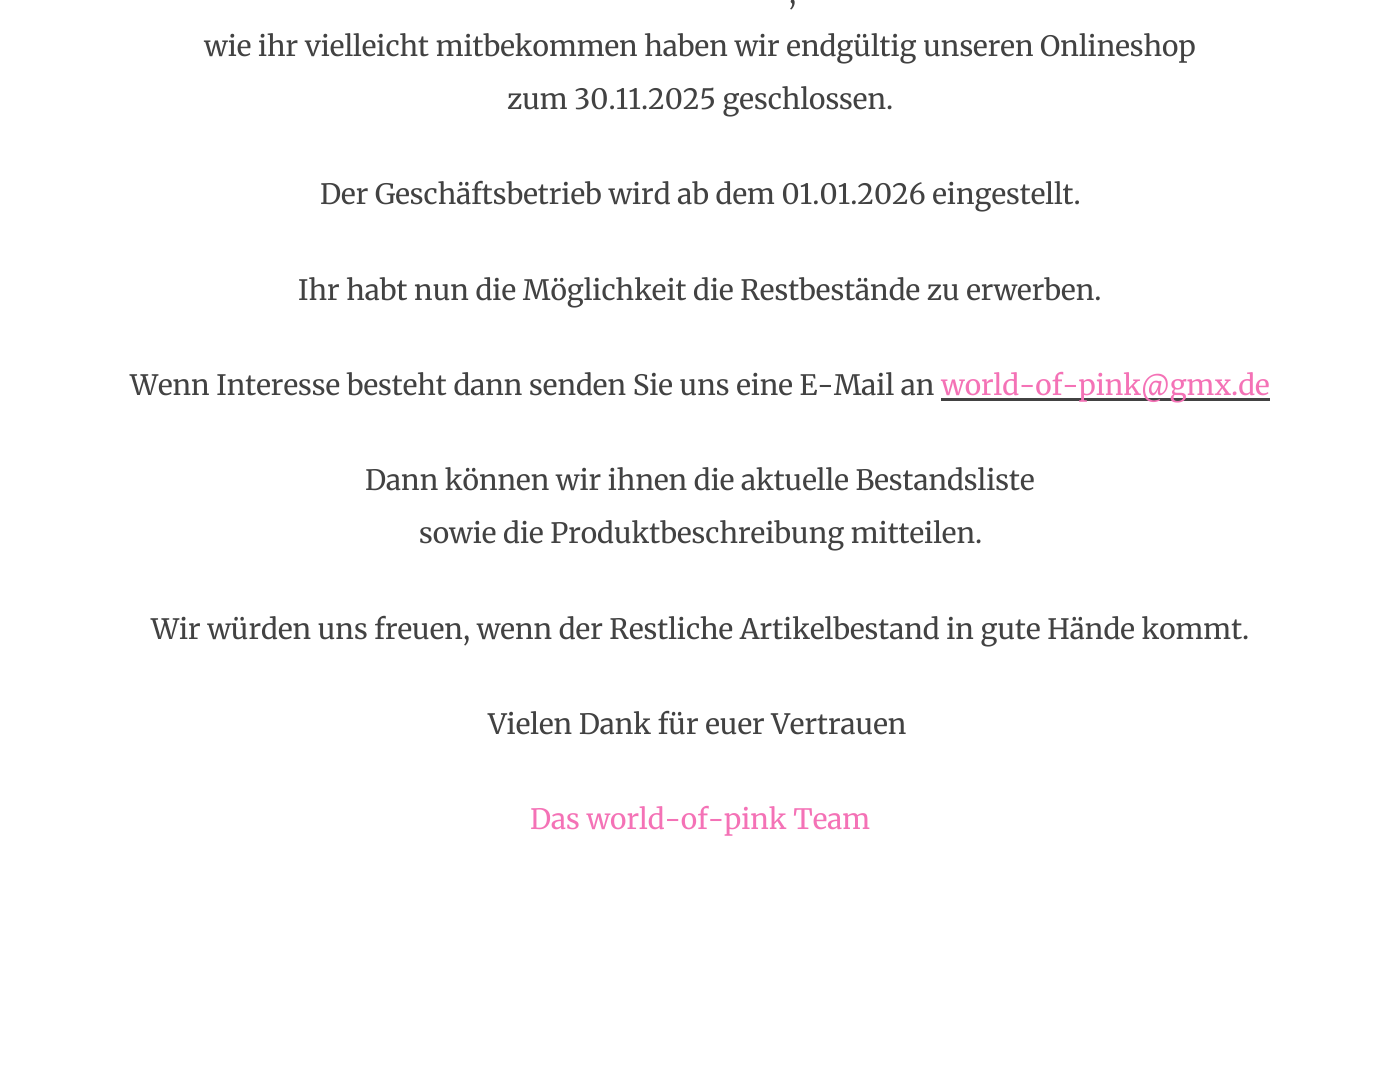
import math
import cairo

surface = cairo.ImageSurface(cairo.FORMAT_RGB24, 1399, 1077)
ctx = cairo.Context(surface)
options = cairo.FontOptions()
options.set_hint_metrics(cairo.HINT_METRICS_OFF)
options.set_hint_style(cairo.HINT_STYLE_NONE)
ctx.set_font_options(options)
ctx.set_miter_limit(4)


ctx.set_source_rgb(1, 1, 1)
ctx.paint()
ctx.select_font_face("Merriweather")
ctx.set_font_size(28)
ctx.set_source_rgb(0.259, 0.259, 0.259)
ctx.move_to(789, 3)
ctx.show_text(",")
ctx.move_to(204, 56)
ctx.show_text("wie ihr vielleicht mitbekommen haben wir endgültig unseren Onlineshop")
ctx.move_to(507, 109)
ctx.show_text("zum 30.11.2025 geschlossen.")
ctx.move_to(320, 204)
ctx.show_text("Der Geschäftsbetrieb wird ab dem 01.01.2026 eingestellt.")
ctx.move_to(298, 300)
ctx.show_text("Ihr habt nun die Möglichkeit die Restbestände zu erwerben.")
ctx.move_to(130, 395)
ctx.show_text("Wenn Interesse besteht dann senden Sie uns eine E-Mail an")
ctx.rectangle(941, 398, 329, 3)
ctx.fill()
ctx.set_source_rgb(0.957, 0.447, 0.714)
ctx.move_to(941, 395)
ctx.show_text("world-of-pink@gmx.de")
ctx.set_source_rgb(0.259, 0.259, 0.259)
ctx.move_to(365, 490)
ctx.show_text("Dann können wir ihnen die aktuelle Bestandsliste")
ctx.move_to(419, 543)
ctx.show_text("sowie die Produktbeschreibung mitteilen.")
ctx.move_to(151, 639)
ctx.show_text("Wir würden uns freuen, wenn der Restliche Artikelbestand in gute Hände kommt.")
ctx.move_to(488, 734)
ctx.show_text("Vielen Dank für euer Vertrauen")
ctx.set_source_rgb(0.957, 0.447, 0.714)
ctx.move_to(530, 829)
ctx.show_text("Das world-of-pink Team")
surface.write_to_png("page.png")
